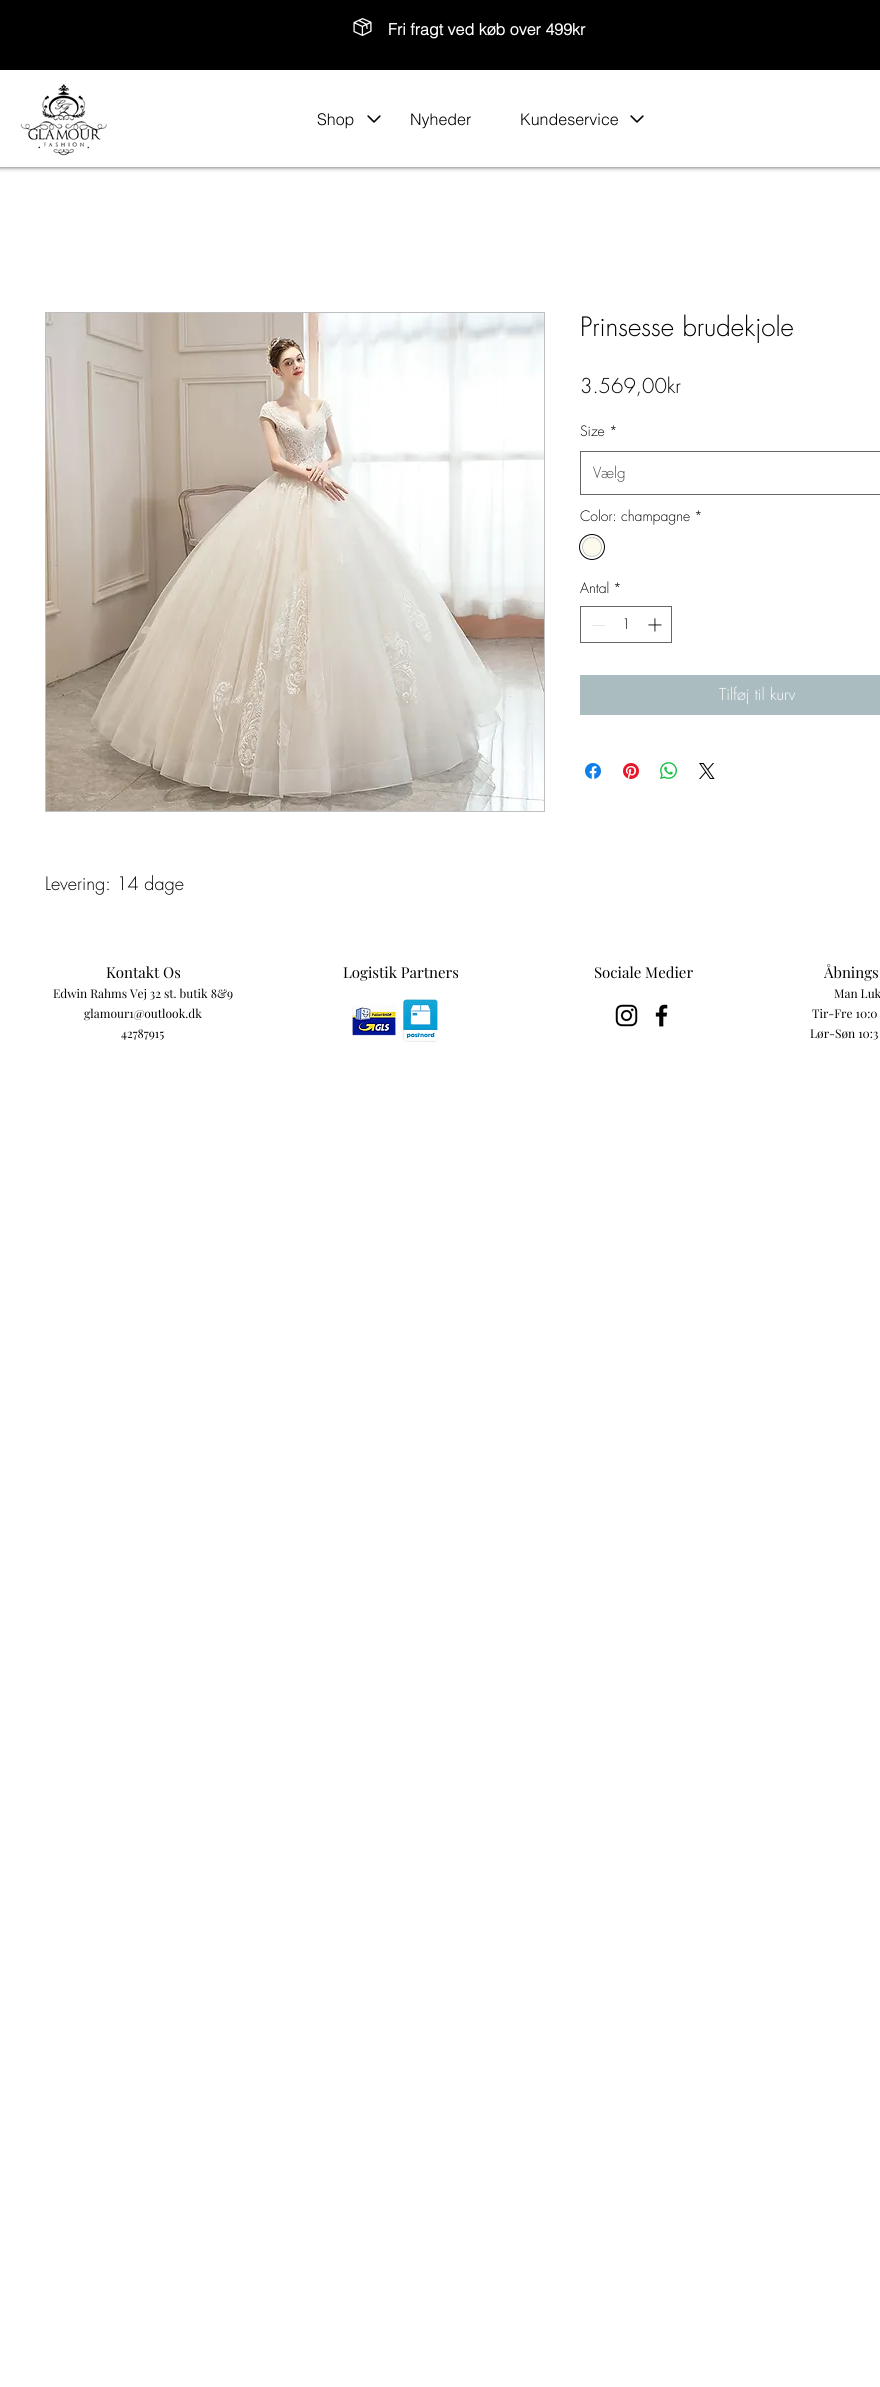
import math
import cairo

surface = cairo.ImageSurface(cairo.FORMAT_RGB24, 880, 2387)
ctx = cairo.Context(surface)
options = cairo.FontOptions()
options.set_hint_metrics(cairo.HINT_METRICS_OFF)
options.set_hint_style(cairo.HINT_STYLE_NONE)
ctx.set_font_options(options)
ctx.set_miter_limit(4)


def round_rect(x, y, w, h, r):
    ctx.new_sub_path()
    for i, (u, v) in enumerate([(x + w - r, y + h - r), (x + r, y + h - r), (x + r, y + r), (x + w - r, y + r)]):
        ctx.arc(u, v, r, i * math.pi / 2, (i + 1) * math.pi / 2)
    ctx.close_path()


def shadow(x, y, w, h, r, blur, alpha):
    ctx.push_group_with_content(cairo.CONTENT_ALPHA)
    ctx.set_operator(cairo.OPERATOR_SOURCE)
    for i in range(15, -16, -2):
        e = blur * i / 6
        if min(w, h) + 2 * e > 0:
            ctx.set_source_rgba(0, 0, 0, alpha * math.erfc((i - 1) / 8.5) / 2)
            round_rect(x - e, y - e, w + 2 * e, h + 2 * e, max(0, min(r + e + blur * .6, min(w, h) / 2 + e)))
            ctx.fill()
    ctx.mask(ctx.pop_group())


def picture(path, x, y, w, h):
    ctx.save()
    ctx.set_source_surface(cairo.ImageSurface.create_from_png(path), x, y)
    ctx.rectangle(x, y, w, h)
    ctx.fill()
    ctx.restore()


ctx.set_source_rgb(1, 1, 1)
ctx.paint()
ctx.set_source_rgb(0, 0, 0)
shadow(0, 0, 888, 167, 0, 2.5, 0.7)
ctx.set_source_rgb(1, 1, 1)
ctx.rectangle(0, 70, 880, 97)
ctx.fill()
ctx.set_source_rgb(0, 0, 0)
ctx.rectangle(0, 0, 880, 70)
ctx.fill()
picture("img1.png", 353, 18, 19, 18)
ctx.select_font_face("helvetica", cairo.FONT_SLANT_NORMAL, cairo.FONT_WEIGHT_BOLD)
ctx.set_font_size(16)
ctx.set_source_rgb(1, 1, 1)
ctx.move_to(388, 35)
ctx.show_text("Fri fragt ved køb over 499kr")
picture("img2.png", 20, 84, 87, 72)
ctx.select_font_face("helvetica Light")
ctx.set_source_rgb(0, 0, 0)
ctx.move_to(317, 125)
ctx.show_text("Shop")
picture("img3.png", 367, 115, 14, 8)
ctx.move_to(410, 125)
ctx.show_text("Nyheder")
ctx.move_to(520, 125)
ctx.show_text("Kundeservice")
picture("img3.png", 630, 115, 14, 8)
ctx.select_font_face("futura Light")
ctx.set_font_size(26)
ctx.move_to(580, 336)
ctx.show_text("Prinsesse brudekjole")
ctx.set_font_size(20)
ctx.move_to(580, 393)
ctx.show_text("3.569,00kr")
ctx.set_font_size(14)
ctx.move_to(580, 436)
ctx.show_text("Size")
ctx.move_to(609, 436)
ctx.show_text("*")
ctx.rectangle(580.5, 451.5, 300, 43)
ctx.set_source_rgb(0.4, 0.4, 0.4)
ctx.set_line_width(1)
ctx.stroke()
ctx.set_font_size(15)
ctx.set_source_rgb(0.267, 0.267, 0.267)
ctx.move_to(593, 478)
ctx.show_text("Vælg")
ctx.set_font_size(14)
ctx.set_source_rgb(0, 0, 0)
ctx.move_to(580, 521)
ctx.show_text("Color: champagne")
ctx.move_to(694, 521)
ctx.show_text("*")
ctx.new_path()
ctx.arc(592, 547, 12.5, 0, 2 * math.pi)
ctx.stroke()
ctx.set_source_rgb(0.984, 0.98, 0.922)
ctx.arc(592, 547, 9.5, 0, 2 * math.pi)
ctx.fill_preserve()
ctx.set_source_rgb(0.788, 0.788, 0.788)
ctx.stroke()
ctx.set_source_rgb(0, 0, 0)
ctx.move_to(580, 593)
ctx.show_text("Antal")
ctx.move_to(613, 593)
ctx.show_text("*")
ctx.rectangle(580.5, 606.5, 91, 36)
ctx.set_source_rgb(0.4, 0.4, 0.4)
ctx.stroke()
ctx.set_source_rgb(0.89, 0.89, 0.89)
ctx.rectangle(592, 625, 13, 1)
ctx.fill()
ctx.set_source_rgb(0, 0, 0)
ctx.move_to(622, 629)
ctx.show_text("1")
picture("img4.png", 648, 618, 14, 14)
ctx.set_source_rgb(0.667, 0.737, 0.749)
ctx.rectangle(580, 675, 300, 40)
ctx.fill()
ctx.set_font_size(16)
ctx.set_source_rgb(1, 1, 1)
ctx.move_to(719, 700)
ctx.show_text("Tilføj til kurv")
picture("img5.png", 585, 763, 16, 16)
picture("img6.png", 623, 763, 16, 16)
picture("img7.png", 660, 762, 17, 17)
picture("img8.png", 699, 763, 16, 16)
ctx.rectangle(45.5, 312.5, 499, 499)
ctx.set_source_rgb(0.749, 0.749, 0.749)
ctx.stroke()
picture("img9.png", 46, 313, 498, 498)
ctx.set_font_size(18)
ctx.set_source_rgb(0, 0, 0)
ctx.move_to(45, 890)
ctx.show_text("Levering: 14 dage")
ctx.select_font_face("Playfair Display")
ctx.set_font_size(15)
ctx.move_to(106, 978)
ctx.show_text("Kontakt Os")
ctx.set_font_size(12)
ctx.move_to(53, 998)
ctx.show_text("Edwin Rahms Vej 32 st. butik 8&9")
ctx.move_to(84, 1018)
ctx.show_text("glamour1@outlook.dk")
ctx.move_to(121, 1038)
ctx.show_text("42787915")
ctx.set_font_size(15)
ctx.move_to(343, 978)
ctx.show_text("Logistik Partners")
ctx.move_to(594, 978)
ctx.show_text("Sociale Medier")
ctx.move_to(824, 978)
ctx.show_text("Åbnings")
ctx.set_font_size(12)
ctx.move_to(834, 998)
ctx.show_text("Man Luk")
ctx.move_to(812, 1018)
ctx.show_text("Tir-Fre 10:0")
ctx.move_to(810, 1038)
ctx.show_text("Lør-Søn 10:3")
picture("img10.png", 352, 999, 86, 43)
picture("img11.png", 615, 1004, 23, 23)
picture("img12.png", 655, 1004, 13, 23)
surface.write_to_png("page.png")
